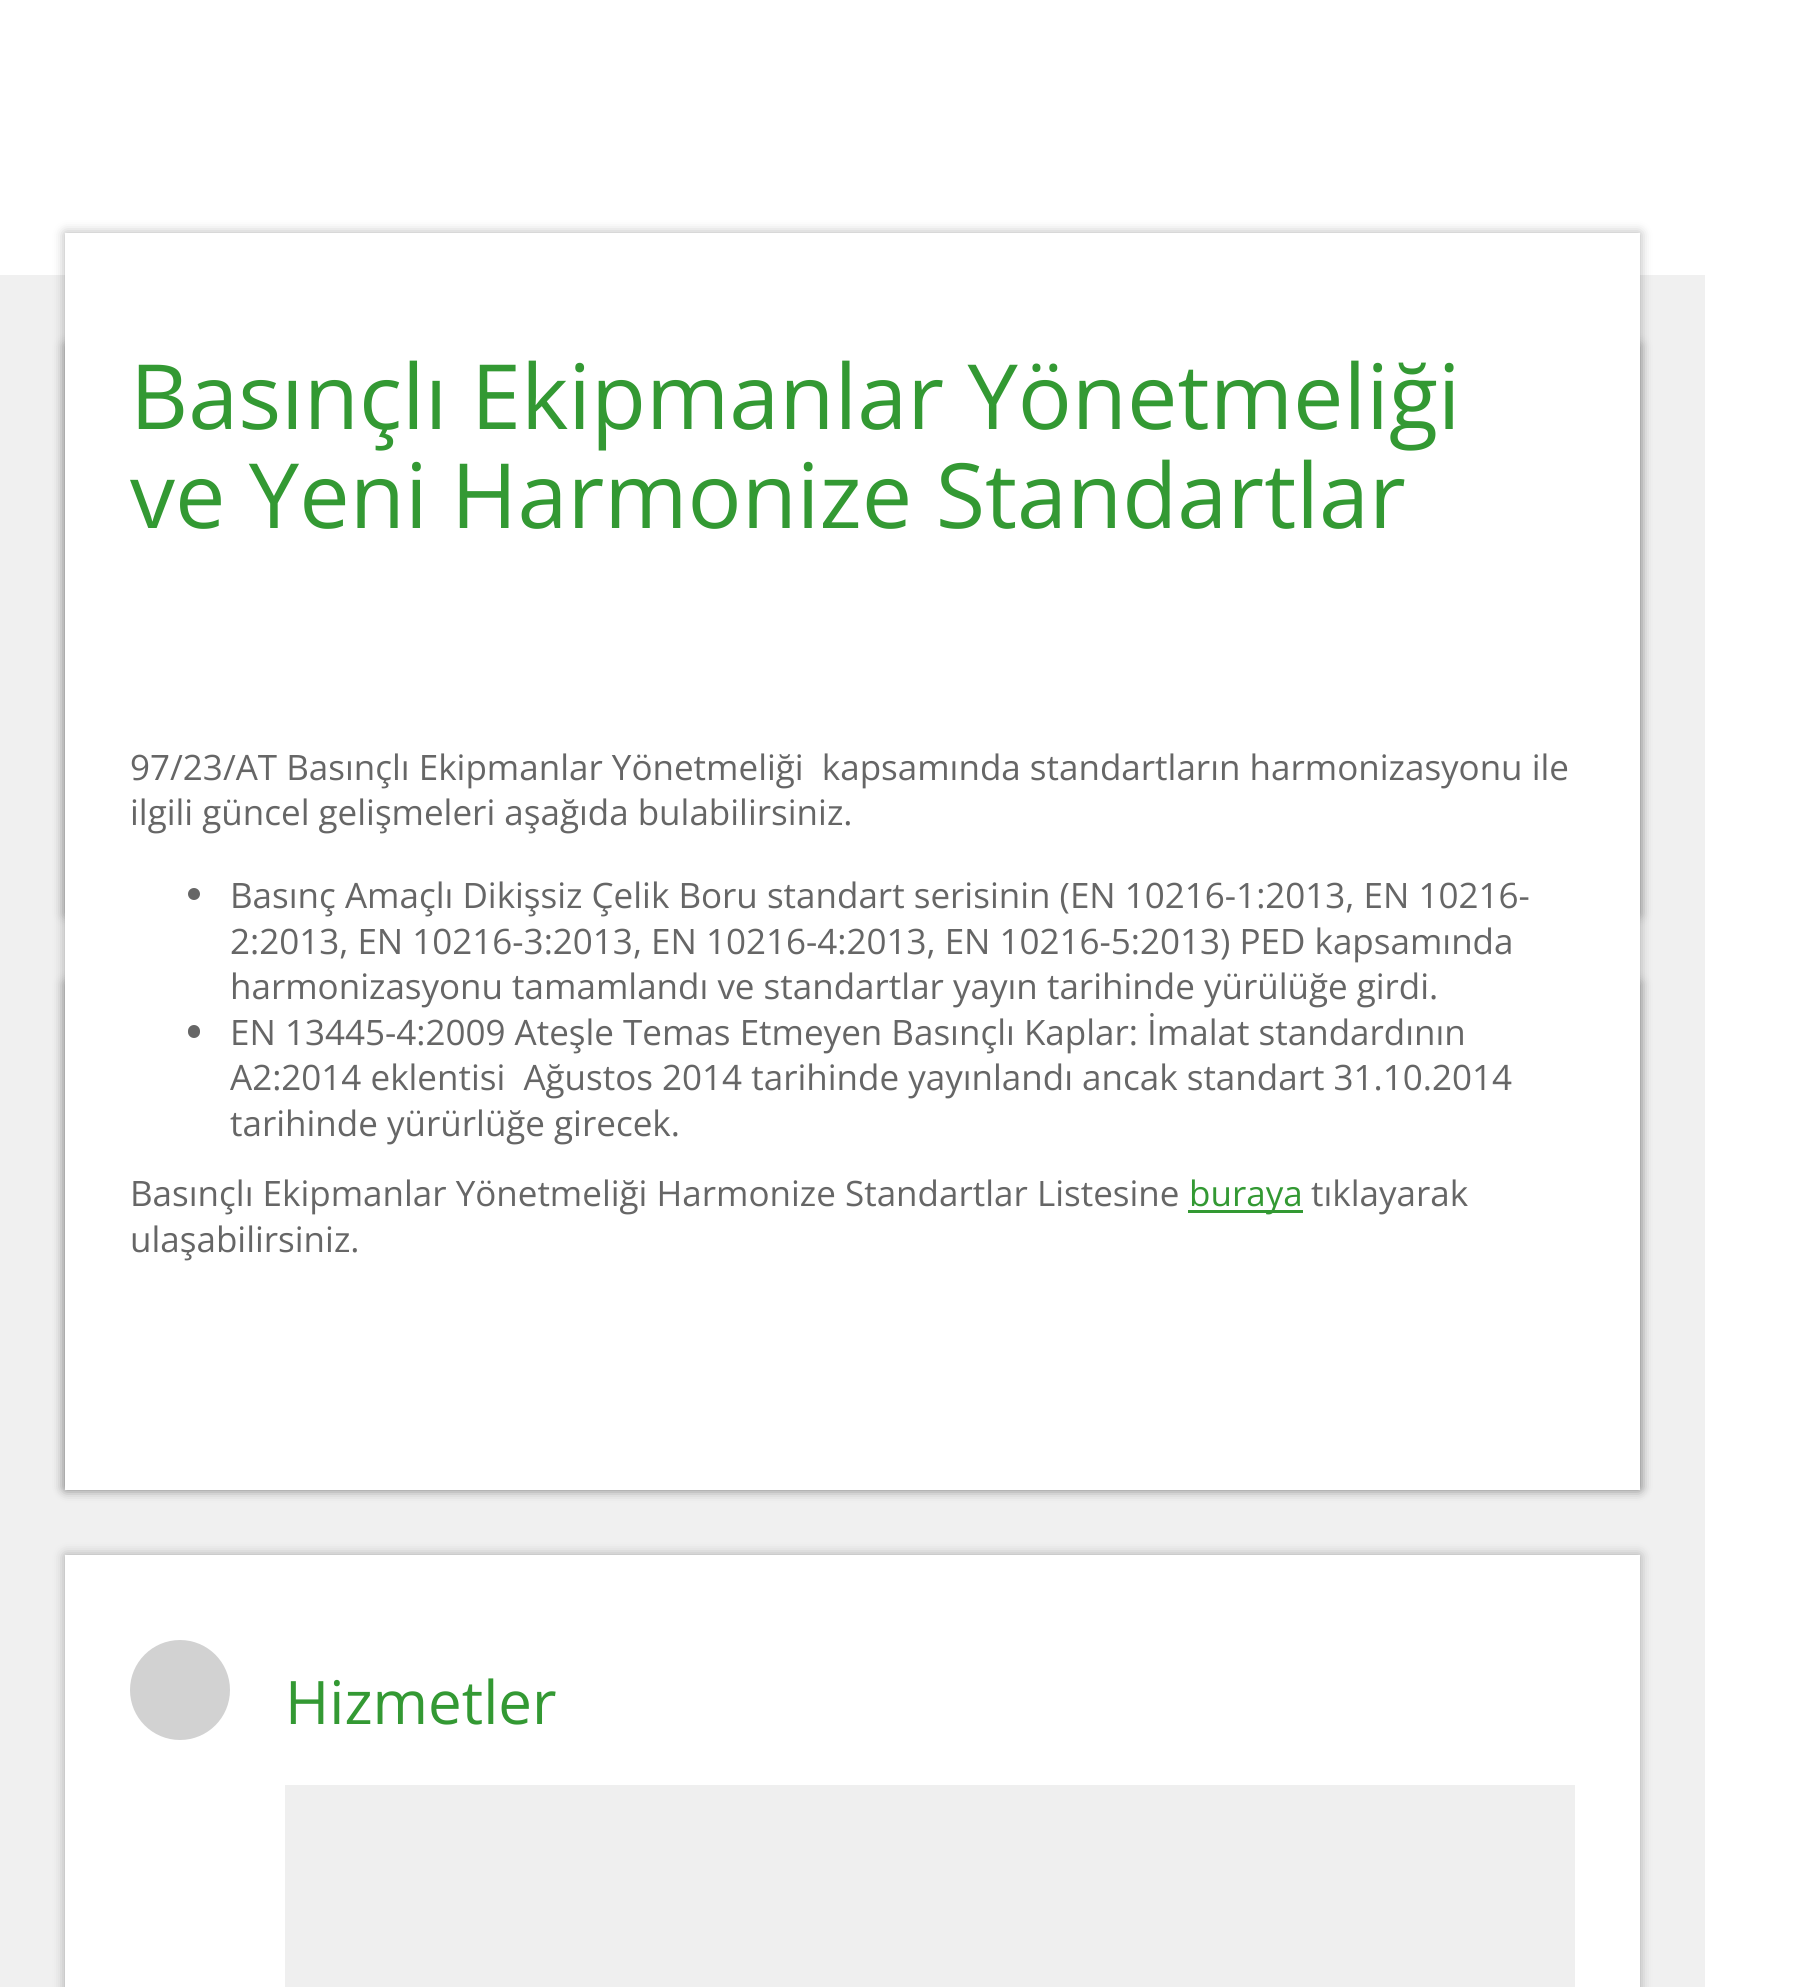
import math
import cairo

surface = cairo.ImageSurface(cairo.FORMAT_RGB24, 1800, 1987)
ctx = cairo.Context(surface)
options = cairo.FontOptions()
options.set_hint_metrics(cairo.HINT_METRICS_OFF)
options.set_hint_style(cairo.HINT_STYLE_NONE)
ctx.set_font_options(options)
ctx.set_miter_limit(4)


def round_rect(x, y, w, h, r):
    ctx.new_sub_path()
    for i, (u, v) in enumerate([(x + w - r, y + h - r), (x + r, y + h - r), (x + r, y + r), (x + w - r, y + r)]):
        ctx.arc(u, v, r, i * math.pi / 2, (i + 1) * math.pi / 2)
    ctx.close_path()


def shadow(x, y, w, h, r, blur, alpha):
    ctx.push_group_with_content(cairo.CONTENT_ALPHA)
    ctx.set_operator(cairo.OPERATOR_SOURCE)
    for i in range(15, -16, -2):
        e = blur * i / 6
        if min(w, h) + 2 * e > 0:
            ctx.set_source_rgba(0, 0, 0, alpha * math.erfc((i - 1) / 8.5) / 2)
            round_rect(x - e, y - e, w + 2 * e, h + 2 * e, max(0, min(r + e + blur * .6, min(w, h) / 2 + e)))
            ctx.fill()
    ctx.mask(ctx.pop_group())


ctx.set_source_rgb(1, 1, 1)
ctx.paint()
ctx.set_source_rgb(0.941, 0.941, 0.941)
ctx.rectangle(0, 275, 1705, 1712)
ctx.fill()
ctx.set_source_rgb(0, 0, 0)
shadow(65, 345, 1575, 570, 0, 6, 0.31)
shadow(65, 233, 1575, 1257, 0, 6, 0.31)
shadow(65, 983, 1575, 505, 0, 6, 0.31)
ctx.set_source_rgb(1, 1, 1)
ctx.rectangle(65, 233, 1575, 1257)
ctx.fill()
ctx.select_font_face("Open Sans")
ctx.set_font_size(90)
ctx.set_source_rgb(0.2, 0.6, 0.2)
ctx.move_to(130, 429)
ctx.show_text("Basınçlı Ekipmanlar Yönetmeliği")
ctx.move_to(130, 528)
ctx.show_text("ve Yeni Harmonize Standartlar")
ctx.set_font_size(35)
ctx.set_source_rgb(0.4, 0.4, 0.4)
ctx.move_to(130, 780)
ctx.show_text("97/23/AT Basınçlı Ekipmanlar Yönetmeliği  kapsamında standartların harmonizasyonu ile")
ctx.move_to(130, 825)
ctx.show_text("ilgili güncel gelişmeleri aşağıda bulabilirsiniz.")
ctx.new_path()
ctx.arc(194, 894, 6, 0, 2 * math.pi)
ctx.fill()
ctx.move_to(230, 908)
ctx.show_text("Basınç Amaçlı Dikişsiz Çelik Boru standart serisinin (EN 10216-1:2013, EN 10216-")
ctx.move_to(230, 954)
ctx.show_text("2:2013, EN 10216-3:2013, EN 10216-4:2013, EN 10216-5:2013) PED kapsamında")
ctx.move_to(230, 999)
ctx.show_text("harmonizasyonu tamamlandı ve standartlar yayın tarihinde yürülüğe girdi.")
round_rect(188, 1025, 12, 13, 6)
ctx.fill()
ctx.move_to(230, 1045)
ctx.show_text("EN 13445-4:2009 Ateşle Temas Etmeyen Basınçlı Kaplar: İmalat standardının")
ctx.move_to(230, 1090)
ctx.show_text("A2:2014 eklentisi  Ağustos 2014 tarihinde yayınlandı ancak standart 31.10.2014")
ctx.move_to(230, 1136)
ctx.show_text("tarihinde yürürlüğe girecek.")
ctx.move_to(130, 1206)
ctx.show_text("Basınçlı Ekipmanlar Yönetmeliği Harmonize Standartlar Listesine")
ctx.set_source_rgb(0.2, 0.6, 0.2)
ctx.rectangle(1188, 1210, 115, 3)
ctx.fill()
ctx.move_to(1189, 1206)
ctx.show_text("buraya")
ctx.set_source_rgb(0.4, 0.4, 0.4)
ctx.move_to(1311, 1206)
ctx.show_text("tıklayarak")
ctx.move_to(130, 1252)
ctx.show_text("ulaşabilirsiniz.")
ctx.set_source_rgb(0, 0, 0)
shadow(65, 1555, 1575, 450, 0, 6, 0.31)
ctx.set_source_rgb(1, 1, 1)
ctx.rectangle(65, 1555, 1575, 432)
ctx.fill()
ctx.set_source_rgb(0.824, 0.824, 0.824)
ctx.arc(180, 1690, 50, 0, 2 * math.pi)
ctx.fill()
ctx.set_font_size(60)
ctx.set_source_rgb(0.2, 0.6, 0.2)
ctx.move_to(285, 1724)
ctx.show_text("Hizmetler")
ctx.set_source_rgb(0.937, 0.937, 0.937)
ctx.rectangle(285, 1785, 1290, 202)
ctx.fill()
surface.write_to_png("page.png")
